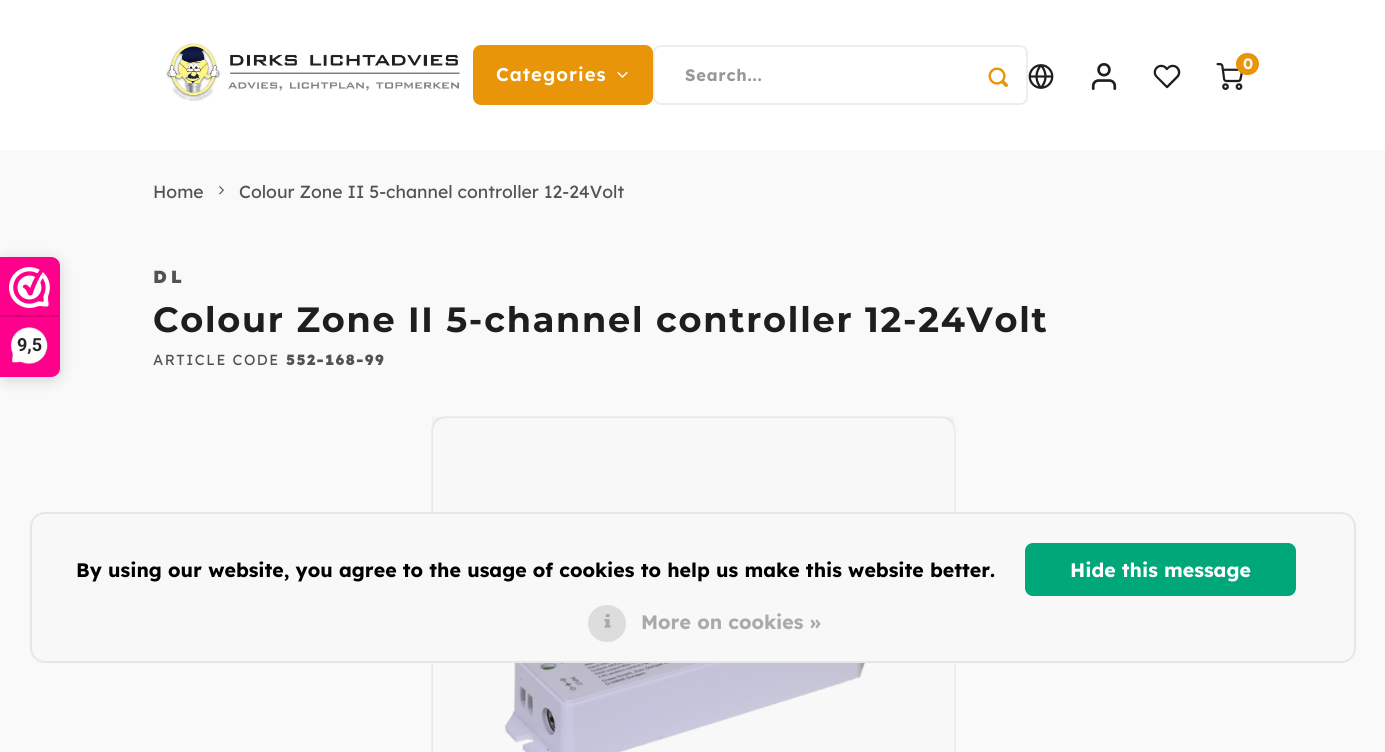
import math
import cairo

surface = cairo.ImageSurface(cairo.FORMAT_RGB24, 1385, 752)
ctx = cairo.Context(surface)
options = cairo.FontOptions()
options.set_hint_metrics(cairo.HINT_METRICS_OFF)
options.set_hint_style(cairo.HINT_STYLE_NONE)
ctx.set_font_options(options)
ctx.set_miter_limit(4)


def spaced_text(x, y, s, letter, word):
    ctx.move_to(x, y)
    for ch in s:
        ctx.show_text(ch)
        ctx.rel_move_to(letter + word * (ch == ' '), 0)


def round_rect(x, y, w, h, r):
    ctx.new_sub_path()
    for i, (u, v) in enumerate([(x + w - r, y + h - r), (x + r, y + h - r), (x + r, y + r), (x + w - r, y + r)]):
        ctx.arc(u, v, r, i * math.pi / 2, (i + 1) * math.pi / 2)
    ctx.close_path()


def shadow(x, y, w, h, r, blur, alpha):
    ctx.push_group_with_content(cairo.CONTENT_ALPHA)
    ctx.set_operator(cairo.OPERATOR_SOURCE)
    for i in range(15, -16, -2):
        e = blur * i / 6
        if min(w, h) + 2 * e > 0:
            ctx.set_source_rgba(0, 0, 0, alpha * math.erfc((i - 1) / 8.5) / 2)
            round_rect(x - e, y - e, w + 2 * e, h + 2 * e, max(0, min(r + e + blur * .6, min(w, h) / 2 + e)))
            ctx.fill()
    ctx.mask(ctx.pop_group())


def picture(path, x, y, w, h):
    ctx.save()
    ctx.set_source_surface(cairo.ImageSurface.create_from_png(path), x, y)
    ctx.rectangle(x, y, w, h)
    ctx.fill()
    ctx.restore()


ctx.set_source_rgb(1, 1, 1)
ctx.paint()
picture("img1.png", 166, 43, 294, 59)
picture("img2.png", 1028, 64, 26, 25)
picture("img3.png", 1091, 63, 26, 27)
picture("img4.png", 1153, 64, 28, 25)
picture("img5.png", 1216, 63, 27, 27)
ctx.set_source_rgb(0.91, 0.584, 0.039)
round_rect(1236, 53, 23, 22, 11)
ctx.fill()
ctx.select_font_face("Lexend Deca", cairo.FONT_SLANT_NORMAL, cairo.FONT_WEIGHT_BOLD)
ctx.set_font_size(15)
ctx.set_source_rgb(1, 1, 1)
ctx.move_to(1243, 69)
ctx.show_text("0")
ctx.set_source_rgb(0.91, 0.584, 0.039)
round_rect(473, 45, 180, 60, 8)
ctx.fill()
ctx.select_font_face("Lexend Deca SemiBold")
ctx.set_font_size(18.5)
ctx.set_source_rgb(1, 1, 1)
spaced_text(496, 81, "Categories", 1, 0)
picture("img6.png", 617, 71, 11, 7)
round_rect(654, 46, 373, 58, 7)
ctx.set_source_rgb(0.929, 0.929, 0.929)
ctx.stroke()
ctx.select_font_face("Lexend Deca", cairo.FONT_SLANT_NORMAL, cairo.FONT_WEIGHT_BOLD)
ctx.set_font_size(16.5)
ctx.set_source_rgb(0.6, 0.6, 0.6)
spaced_text(685, 81, "Search...", 0.75, 0)
picture("img7.png", 988, 67, 20, 20)
ctx.set_source_rgb(0.973, 0.973, 0.973)
ctx.rectangle(0, 150, 1385, 602)
ctx.fill()
ctx.set_source_rgb(0, 0, 0)
shadow(0, 260, 60, 120, 9, 7.5, 0.15)
ctx.set_source_rgb(0.996, 0, 0.549)
ctx.new_path()
ctx.move_to(0, 257)
ctx.line_to(51, 257)
ctx.curve_to(56, 257, 60, 261, 60, 266)
ctx.line_to(60, 368)
ctx.curve_to(60, 373, 56, 377, 51, 377)
ctx.line_to(0, 377)
ctx.close_path()
ctx.fill()
picture("img8.png", 9, 267, 41, 41)
ctx.set_source_rgb(0.847, 0, 0.467)
ctx.rectangle(0, 315, 59, 2)
ctx.fill()
picture("img9.png", 10, 327, 38, 38)
ctx.select_font_face("Roboto", cairo.FONT_SLANT_NORMAL, cairo.FONT_WEIGHT_BOLD)
ctx.set_font_size(18)
ctx.set_source_rgb(0.153, 0.149, 0.149)
ctx.move_to(17, 351)
ctx.show_text("9,5")
ctx.select_font_face("Lexend Deca")
ctx.set_font_size(17.55)
ctx.set_source_rgb(0.322, 0.322, 0.322)
ctx.move_to(153, 198)
ctx.show_text("Home")
picture("img10.png", 219, 186, 5, 9)
ctx.move_to(239, 198)
ctx.show_text("Colour Zone II 5-channel controller 12-24Volt")
ctx.select_font_face("Lexend Deca Black")
spaced_text(153, 283, "DL", 4, 0)
ctx.select_font_face("Montserrat", cairo.FONT_SLANT_NORMAL, cairo.FONT_WEIGHT_BOLD)
ctx.set_font_size(35.1)
ctx.set_source_rgb(0.118, 0.118, 0.118)
spaced_text(153, 332, "Colour Zone II 5-channel controller 12-24Volt", 1.75, 0)
ctx.select_font_face("Lexend Deca")
ctx.set_font_size(14.6)
ctx.set_source_rgb(0.322, 0.322, 0.322)
spaced_text(153, 365, "ARTICLE CODE", 1.5, 0)
ctx.select_font_face("Lexend Deca Black")
spaced_text(286, 365, "552-168-99", 1.5, 0)
ctx.set_source_rgb(1, 1, 1)
round_rect(431, 416, 525, 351, 15)
ctx.fill()
round_rect(432, 417, 523, 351, 14)
ctx.set_source_rgba(0, 0, 0, 0.07)
ctx.stroke()
picture("img11.png", 504, 663, 362, 89)
ctx.set_source_rgba(0, 0, 0, 0.03)
ctx.rectangle(432, 417, 522, 335)
ctx.fill()
ctx.set_source_rgb(0.969, 0.969, 0.969)
round_rect(31, 513, 1324, 149, 14)
ctx.fill_preserve()
ctx.set_source_rgb(0.902, 0.902, 0.902)
ctx.stroke()
ctx.select_font_face("Lexend Deca", cairo.FONT_SLANT_NORMAL, cairo.FONT_WEIGHT_BOLD)
ctx.set_font_size(19.5)
ctx.set_source_rgb(0, 0, 0)
ctx.move_to(76, 577)
ctx.show_text("By using our website, you agree to the usage of cookies to help us make this website better.")
ctx.set_source_rgb(0, 0.655, 0.475)
round_rect(1025, 543, 271, 53, 8)
ctx.fill()
ctx.set_source_rgb(1, 1, 1)
ctx.move_to(1070, 577)
ctx.show_text("Hide this message")
ctx.set_source_rgb(0.867, 0.867, 0.867)
round_rect(588, 605, 38, 37, 18.5)
ctx.fill()
picture("img12.png", 604, 614, 7, 14)
ctx.set_source_rgb(0.667, 0.667, 0.667)
ctx.move_to(641, 629)
ctx.show_text("More on cookies »")
surface.write_to_png("page.png")
